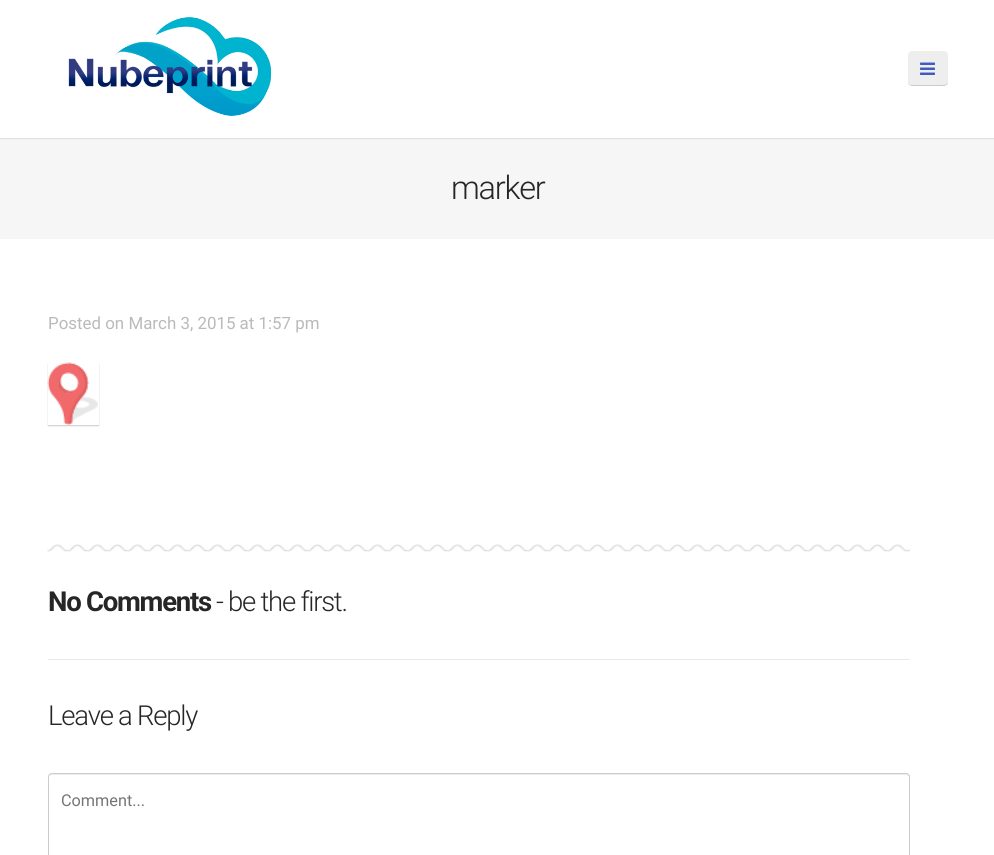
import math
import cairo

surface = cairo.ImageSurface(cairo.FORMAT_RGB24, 994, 855)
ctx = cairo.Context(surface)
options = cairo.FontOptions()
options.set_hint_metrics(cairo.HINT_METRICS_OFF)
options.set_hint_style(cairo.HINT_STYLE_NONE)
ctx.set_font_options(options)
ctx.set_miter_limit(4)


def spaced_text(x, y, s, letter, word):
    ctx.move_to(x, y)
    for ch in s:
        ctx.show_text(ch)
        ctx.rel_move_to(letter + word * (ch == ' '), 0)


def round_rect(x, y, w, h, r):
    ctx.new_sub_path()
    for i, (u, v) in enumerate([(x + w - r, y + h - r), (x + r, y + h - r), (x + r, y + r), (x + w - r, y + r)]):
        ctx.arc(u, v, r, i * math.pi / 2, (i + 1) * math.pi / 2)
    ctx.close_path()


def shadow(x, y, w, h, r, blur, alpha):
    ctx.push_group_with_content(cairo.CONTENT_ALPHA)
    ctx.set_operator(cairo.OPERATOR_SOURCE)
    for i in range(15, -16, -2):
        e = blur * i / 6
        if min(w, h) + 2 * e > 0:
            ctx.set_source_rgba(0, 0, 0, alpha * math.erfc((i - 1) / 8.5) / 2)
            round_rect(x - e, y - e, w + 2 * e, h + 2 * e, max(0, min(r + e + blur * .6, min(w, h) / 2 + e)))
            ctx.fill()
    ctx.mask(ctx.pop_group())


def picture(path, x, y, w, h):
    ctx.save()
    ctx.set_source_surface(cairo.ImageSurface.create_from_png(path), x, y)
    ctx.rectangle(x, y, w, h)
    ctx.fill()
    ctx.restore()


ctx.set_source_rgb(1, 1, 1)
ctx.paint()
ctx.set_source_rgb(0.961, 0.961, 0.961)
ctx.rectangle(0, 138, 994, 101)
ctx.fill()
ctx.set_source_rgb(0, 0, 0)
shadow(0, 1, 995, 138, 0, 0.5, 0.1)
ctx.set_source_rgb(1, 1, 1)
ctx.rectangle(0, 0, 994, 138)
ctx.fill()
picture("img1.png", 68, 17, 203, 99)
ctx.set_source_rgb(0.933, 0.933, 0.933)
round_rect(908, 51, 40, 35, 4)
ctx.fill()
ctx.set_source_rgba(0, 0, 0, 0.15)
ctx.new_path()
ctx.move_to(908, 81)
ctx.curve_to(908, 87, 913, 86, 917, 86)
ctx.line_to(939, 86)
ctx.curve_to(943, 86, 948, 87, 948, 81)
ctx.curve_to(948, 83, 946, 85, 944, 85)
ctx.line_to(911, 85)
ctx.curve_to(909, 85, 908, 83, 908, 81)
ctx.close_path()
ctx.fill()
picture("img2.png", 920, 62, 15, 13)
ctx.select_font_face("Roboto Light")
ctx.set_font_size(32.5)
ctx.set_source_rgb(0.149, 0.149, 0.149)
spaced_text(451, 199, "marker", -1.25, 0)
ctx.select_font_face("Roboto")
ctx.set_font_size(16.9)
ctx.set_source_rgb(0.729, 0.729, 0.729)
ctx.move_to(48, 329)
ctx.show_text("Posted on March 3, 2015 at 1:57 pm")
ctx.save()
ctx.set_fill_rule(cairo.FILL_RULE_EVEN_ODD)
ctx.new_path()
ctx.move_to(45, 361)
ctx.line_to(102, 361)
ctx.line_to(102, 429)
ctx.line_to(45, 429)
ctx.close_path()
ctx.move_to(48, 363)
ctx.line_to(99, 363)
ctx.line_to(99, 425)
ctx.line_to(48, 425)
ctx.close_path()
ctx.clip()
ctx.set_source_rgb(0, 0, 0)
shadow(48, 364, 51, 62, 0, 0.5, 0.2)
ctx.restore()
picture("img3.png", 47, 362, 51, 63)
picture("img4.png", 47, 544, 863, 8)
ctx.select_font_face("Roboto", cairo.FONT_SLANT_NORMAL, cairo.FONT_WEIGHT_BOLD)
ctx.set_font_size(27.5)
ctx.set_source_rgb(0.149, 0.149, 0.149)
spaced_text(48, 611, "No Comments", -1.25, 0)
ctx.select_font_face("Roboto Light")
spaced_text(216, 611, "- be the first.", -1.25, 0)
ctx.set_source_rgb(0.914, 0.914, 0.914)
ctx.rectangle(48, 659, 862, 1)
ctx.fill()
ctx.set_source_rgb(0.149, 0.149, 0.149)
spaced_text(48, 725, "Leave a Reply", -1.25, 0)
ctx.set_source_rgb(0.925, 0.925, 0.925)
ctx.new_path()
ctx.move_to(51, 775)
ctx.line_to(906, 775)
ctx.curve_to(908, 775, 909, 776, 909, 778)
ctx.line_to(909, 776)
ctx.curve_to(909, 775, 908, 774, 906, 774)
ctx.line_to(52, 774)
ctx.curve_to(50, 774, 49, 775, 49, 776)
ctx.line_to(49, 778)
ctx.curve_to(49, 776, 50, 775, 51, 775)
ctx.close_path()
ctx.fill()
round_rect(48.5, 773.5, 861, 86, 3.5)
ctx.set_source_rgba(0, 0, 0, 0.2)
ctx.set_line_width(1)
ctx.stroke()
ctx.select_font_face("Roboto")
ctx.set_font_size(16.25)
ctx.set_source_rgb(0.459, 0.459, 0.459)
ctx.move_to(61, 806)
ctx.show_text("Comment...")
surface.write_to_png("page.png")
